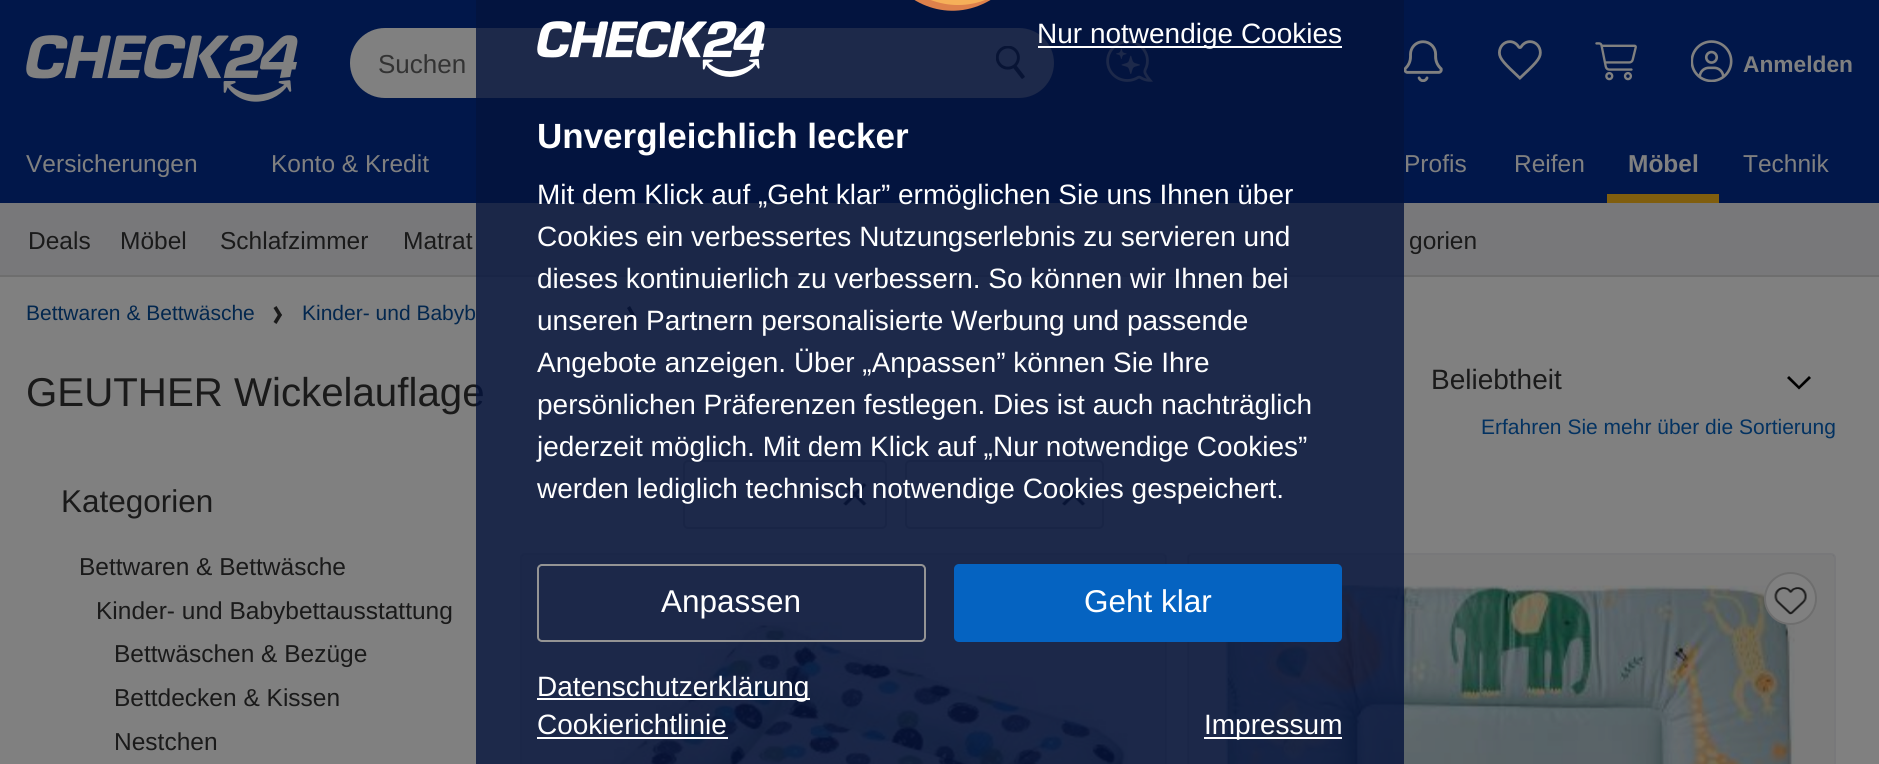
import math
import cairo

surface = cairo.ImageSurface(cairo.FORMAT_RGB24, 1879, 764)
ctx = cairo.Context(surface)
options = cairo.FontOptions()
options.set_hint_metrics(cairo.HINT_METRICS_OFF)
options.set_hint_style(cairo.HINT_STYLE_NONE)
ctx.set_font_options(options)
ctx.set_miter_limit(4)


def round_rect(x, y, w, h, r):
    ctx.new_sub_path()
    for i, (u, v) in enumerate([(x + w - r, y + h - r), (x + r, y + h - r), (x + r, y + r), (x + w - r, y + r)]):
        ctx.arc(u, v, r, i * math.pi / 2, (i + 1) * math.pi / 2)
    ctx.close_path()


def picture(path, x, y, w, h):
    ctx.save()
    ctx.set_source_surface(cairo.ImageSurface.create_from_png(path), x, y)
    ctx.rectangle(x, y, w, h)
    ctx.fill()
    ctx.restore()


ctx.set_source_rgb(0.502, 0.502, 0.502)
ctx.paint()
ctx.set_source_rgb(0.004, 0.09, 0.29)
ctx.rectangle(0, 0, 1879, 203)
ctx.fill()
ctx.set_source_rgb(0.502, 0.502, 0.502)
round_rect(350, 28, 704, 70, 35)
ctx.fill()
picture("img4.png", 996, 46, 29, 33)
picture("img5.png", 1106, 40, 47, 42)
ctx.set_source_rgb(0.471, 0.471, 0.478)
ctx.rectangle(0, 203, 1879, 72)
ctx.fill()
ctx.set_source_rgb(0.431, 0.431, 0.431)
ctx.rectangle(0, 275, 1879, 2)
ctx.fill()
ctx.set_source_rgb(0.102, 0.102, 0.102)
ctx.new_path()
ctx.move_to(630, 306)
ctx.line_to(635, 315)
ctx.line_to(632, 317)
ctx.line_to(627, 308)
ctx.close_path()
ctx.fill()
ctx.new_path()
ctx.move_to(627, 322)
ctx.line_to(632, 313)
ctx.line_to(635, 315)
ctx.line_to(630, 324)
ctx.close_path()
ctx.fill()
ctx.select_font_face("Liberation Sans")
ctx.set_font_size(40.25)
ctx.move_to(26, 406)
ctx.show_text("GEUTHER Wickelauflage")
round_rect(684, 461, 202, 67, 4)
ctx.set_source_rgb(0.431, 0.431, 0.431)
ctx.stroke()
picture("img10.png", 843, 483, 24, 23)
round_rect(906, 461, 197, 67, 4)
ctx.stroke()
picture("img11.png", 1062, 483, 24, 23)
round_rect(521, 554, 645, 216, 4)
ctx.set_source_rgb(0.471, 0.471, 0.478)
ctx.stroke()
picture("img12.png", 595, 622, 533, 142)
ctx.set_source_rgba(0, 0, 0, 0.04)
ctx.rectangle(522, 555, 644, 209)
ctx.fill()
round_rect(1188, 554, 647, 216, 4)
ctx.set_source_rgb(0.471, 0.471, 0.478)
ctx.stroke()
picture("img14.png", 1225, 585, 570, 179)
ctx.set_source_rgba(0, 0, 0, 0.04)
ctx.rectangle(1188, 555, 646, 209)
ctx.fill()
ctx.set_source_rgba(0.016, 0.078, 0.235, 0.8)
ctx.rectangle(476, 0, 928, 764)
ctx.fill()
picture("img1.png", 914, 0, 77, 11)
picture("img2.png", 537, 21, 228, 56)
ctx.set_source_rgb(1, 1, 1)
ctx.rectangle(1038, 46, 304, 2)
ctx.fill()
ctx.set_font_size(28)
ctx.move_to(1037, 43)
ctx.show_text("Nur notwendige Cookies")
ctx.select_font_face("Liberation Sans", cairo.FONT_SLANT_NORMAL, cairo.FONT_WEIGHT_BOLD)
ctx.set_font_size(35)
ctx.move_to(537, 148)
ctx.show_text("Unvergleichlich lecker")
ctx.select_font_face("Liberation Sans")
ctx.set_font_size(28)
ctx.move_to(537, 204)
ctx.show_text("Mit dem Klick auf „Geht klar” ermöglichen Sie uns Ihnen über")
ctx.move_to(537, 246)
ctx.show_text("Cookies ein verbessertes Nutzungserlebnis zu servieren und")
ctx.move_to(537, 288)
ctx.show_text("dieses kontinuierlich zu verbessern. So können wir Ihnen bei")
ctx.move_to(537, 330)
ctx.show_text("unseren Partnern personalisierte Werbung und passende")
ctx.move_to(537, 372)
ctx.show_text("Angebote anzeigen. Über „Anpassen” können Sie Ihre")
ctx.move_to(537, 414)
ctx.show_text("persönlichen Präferenzen festlegen. Dies ist auch nachträglich")
ctx.move_to(537, 456)
ctx.show_text("jederzeit möglich. Mit dem Klick auf „Nur notwendige Cookies”")
ctx.move_to(537, 498)
ctx.show_text("werden lediglich technisch notwendige Cookies gespeichert.")
round_rect(538, 565, 387, 76, 4)
ctx.set_source_rgb(0.58, 0.58, 0.58)
ctx.stroke()
ctx.set_font_size(31.5)
ctx.set_source_rgb(1, 1, 1)
ctx.move_to(661, 612)
ctx.show_text("Anpassen")
ctx.set_source_rgb(0.02, 0.388, 0.757)
round_rect(954, 564, 388, 78, 5)
ctx.fill()
ctx.set_source_rgb(1, 1, 1)
ctx.move_to(1084, 612)
ctx.show_text("Geht klar")
ctx.rectangle(537, 698, 273, 2)
ctx.fill()
ctx.set_font_size(28)
ctx.move_to(537, 696)
ctx.show_text("Datenschutzerklärung")
ctx.move_to(537, 734)
ctx.show_text("Cookierichtlinie")
ctx.rectangle(537, 737, 191, 2)
ctx.fill()
ctx.rectangle(1204, 737, 138, 2)
ctx.fill()
ctx.move_to(1204, 734)
ctx.show_text("Impressum")
picture("img3.png", 26, 35, 272, 67)
ctx.set_font_size(26)
ctx.set_source_rgb(0.2, 0.2, 0.2)
ctx.move_to(378, 73)
ctx.show_text("Suchen")
picture("img6.png", 1404, 40, 39, 42)
picture("img7.png", 1498, 40, 44, 40)
picture("img8.png", 1595, 42, 42, 39)
picture("img9.png", 1691, 40, 42, 42)
ctx.select_font_face("Liberation Sans", cairo.FONT_SLANT_NORMAL, cairo.FONT_WEIGHT_BOLD)
ctx.set_font_size(22.75)
ctx.set_source_rgb(0.502, 0.502, 0.502)
ctx.move_to(1743, 72)
ctx.show_text("Anmelden")
ctx.select_font_face("Liberation Sans")
ctx.set_font_size(24.5)
ctx.move_to(26, 172)
ctx.show_text("Versicherungen")
ctx.move_to(271, 172)
ctx.show_text("Konto & Kredit")
ctx.move_to(1404, 172)
ctx.show_text("Profis")
ctx.move_to(1514, 172)
ctx.show_text("Reifen")
ctx.select_font_face("Liberation Sans", cairo.FONT_SLANT_NORMAL, cairo.FONT_WEIGHT_BOLD)
ctx.move_to(1628, 172)
ctx.show_text("Möbel")
ctx.set_source_rgb(0.502, 0.369, 0.055)
ctx.rectangle(1607, 194, 112, 9)
ctx.fill()
ctx.select_font_face("Liberation Sans")
ctx.set_source_rgb(0.502, 0.502, 0.502)
ctx.move_to(1743, 172)
ctx.show_text("Technik")
ctx.set_source_rgb(0.102, 0.102, 0.102)
ctx.move_to(28, 249)
ctx.show_text("Deals")
ctx.move_to(120, 249)
ctx.show_text("Möbel")
ctx.move_to(220, 249)
ctx.show_text("Schlafzimmer")
ctx.move_to(403, 249)
ctx.show_text("Matrat")
ctx.move_to(1409, 249)
ctx.show_text("gorien")
ctx.set_font_size(21)
ctx.set_source_rgb(0.012, 0.153, 0.306)
ctx.move_to(26, 320)
ctx.show_text("Bettwaren & Bettwäsche")
ctx.set_source_rgb(0.102, 0.102, 0.102)
ctx.new_path()
ctx.move_to(276.5, 306)
ctx.line_to(282, 315)
ctx.line_to(279, 317)
ctx.line_to(273.5, 308)
ctx.close_path()
ctx.fill()
ctx.new_path()
ctx.move_to(273.5, 322)
ctx.line_to(279, 313)
ctx.line_to(282, 315)
ctx.line_to(276.5, 324)
ctx.close_path()
ctx.fill()
ctx.set_source_rgb(0.012, 0.153, 0.306)
ctx.move_to(302, 320)
ctx.show_text("Kinder- und Babyb")
ctx.set_source_rgb(0, 0, 0)
ctx.new_path()
ctx.move_to(1799, 386)
ctx.line_to(1789, 376)
ctx.line_to(1787, 378)
ctx.line_to(1799, 389.5)
ctx.line_to(1811, 378)
ctx.line_to(1809, 376)
ctx.close_path()
ctx.fill()
ctx.set_font_size(28)
ctx.set_source_rgb(0.102, 0.102, 0.102)
ctx.move_to(1431, 389)
ctx.show_text("Beliebtheit")
ctx.set_font_size(21)
ctx.set_source_rgb(0.012, 0.196, 0.38)
ctx.move_to(1481, 434)
ctx.show_text("Erfahren Sie mehr über die Sortierung")
ctx.set_font_size(31.5)
ctx.set_source_rgb(0.102, 0.102, 0.102)
ctx.move_to(61, 512)
ctx.show_text("Kategorien")
ctx.set_font_size(24.5)
ctx.move_to(79, 575)
ctx.show_text("Bettwaren & Bettwäsche")
ctx.move_to(96, 619)
ctx.show_text("Kinder- und Babybettausstattung")
ctx.move_to(114, 662)
ctx.show_text("Bettwäschen & Bezüge")
ctx.move_to(114, 706)
ctx.show_text("Bettdecken & Kissen")
ctx.move_to(114, 750)
ctx.show_text("Nestchen")
ctx.set_source_rgb(0.502, 0.502, 0.502)
ctx.new_path()
ctx.arc(1790.5, 598.5, 25.5, 0, 2 * math.pi)
ctx.fill_preserve()
ctx.set_source_rgb(0.431, 0.431, 0.431)
ctx.stroke()
picture("img13.png", 1774, 587, 33, 28)
surface.write_to_png("page.png")
